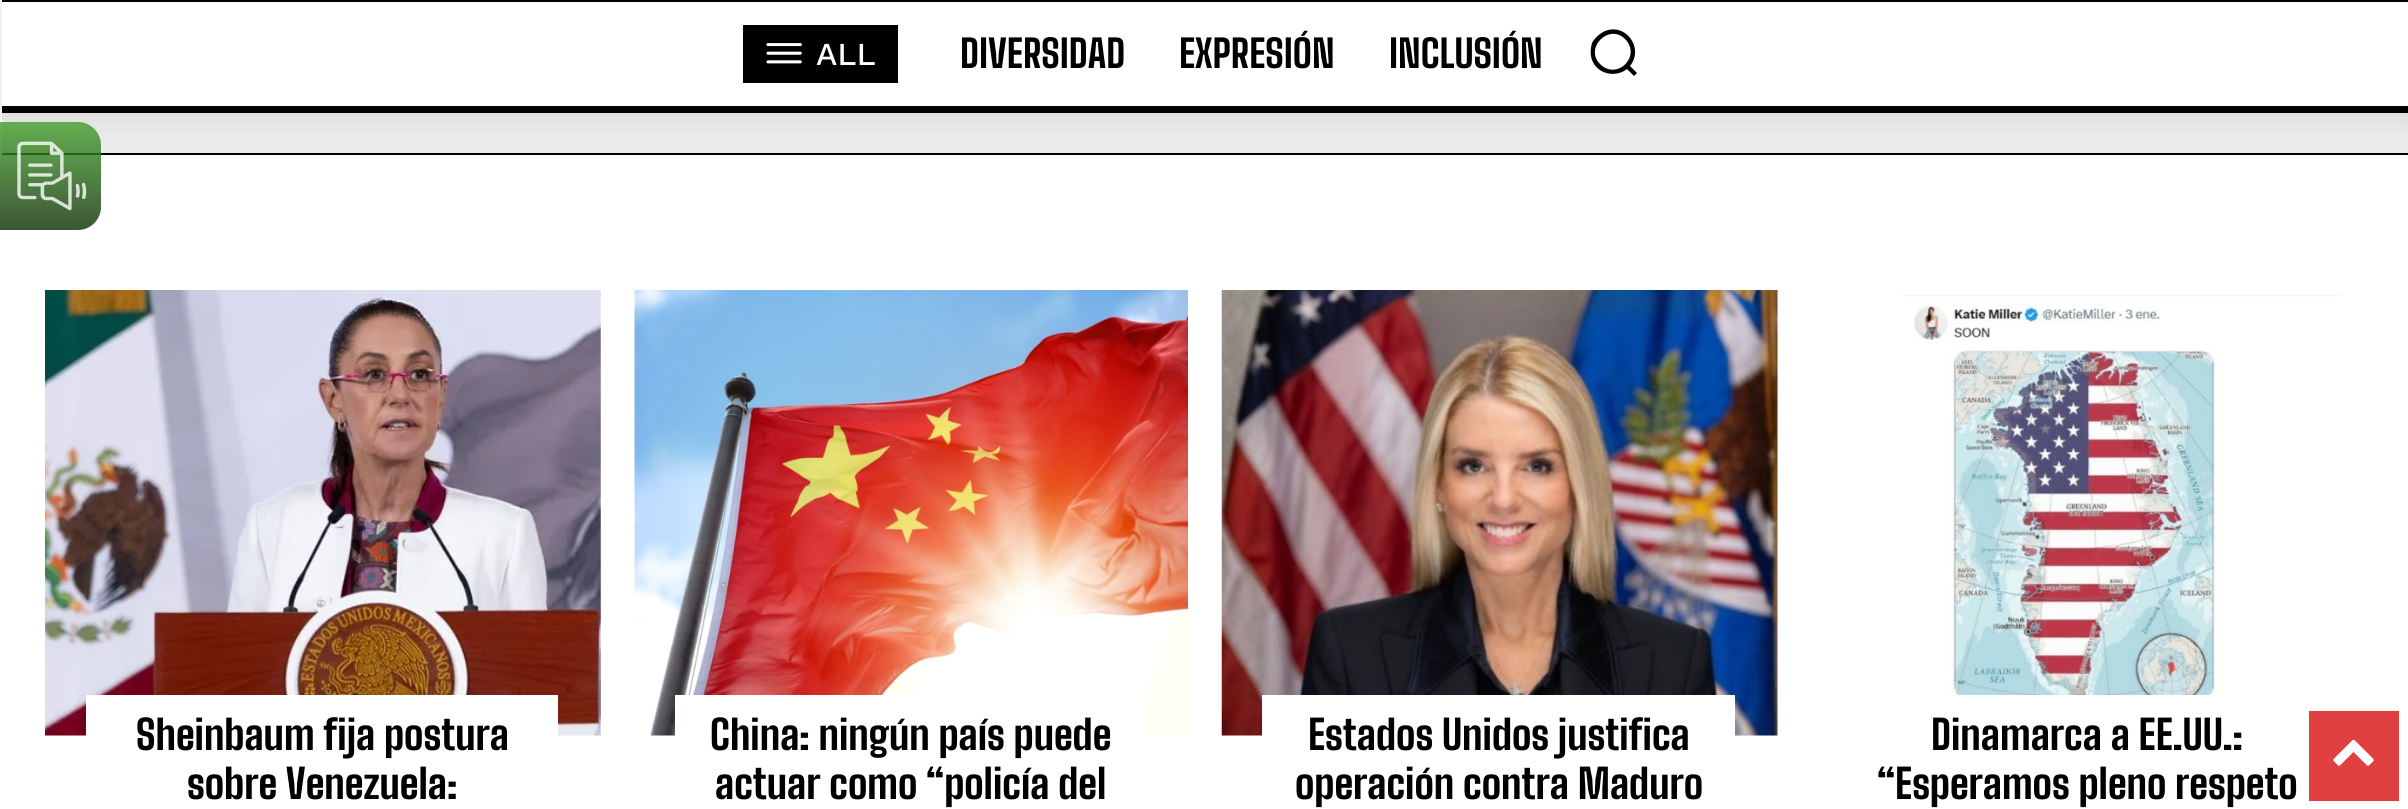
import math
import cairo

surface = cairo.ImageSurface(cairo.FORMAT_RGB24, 2408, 809)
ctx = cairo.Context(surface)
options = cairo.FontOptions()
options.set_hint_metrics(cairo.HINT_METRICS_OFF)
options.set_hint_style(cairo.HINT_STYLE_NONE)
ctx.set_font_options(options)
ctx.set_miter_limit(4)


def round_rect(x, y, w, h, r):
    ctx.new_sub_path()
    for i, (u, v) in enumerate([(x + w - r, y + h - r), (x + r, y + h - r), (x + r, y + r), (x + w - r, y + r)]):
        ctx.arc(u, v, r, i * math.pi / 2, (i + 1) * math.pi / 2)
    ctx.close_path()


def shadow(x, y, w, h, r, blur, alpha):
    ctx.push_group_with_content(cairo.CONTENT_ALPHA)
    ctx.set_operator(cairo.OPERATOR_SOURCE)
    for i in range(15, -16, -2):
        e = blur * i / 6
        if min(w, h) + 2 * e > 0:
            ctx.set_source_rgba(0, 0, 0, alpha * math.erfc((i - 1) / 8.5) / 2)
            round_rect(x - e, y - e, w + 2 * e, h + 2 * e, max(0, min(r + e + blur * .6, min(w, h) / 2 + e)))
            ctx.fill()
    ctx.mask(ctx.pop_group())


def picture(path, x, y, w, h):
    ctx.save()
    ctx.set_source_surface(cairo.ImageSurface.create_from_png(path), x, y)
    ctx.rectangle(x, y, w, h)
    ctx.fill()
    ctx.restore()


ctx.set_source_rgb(1, 1, 1)
ctx.paint()
ctx.set_source_rgb(0, 0, 0)
ctx.rectangle(2, 0, 2406, 2)
ctx.fill()
ctx.rectangle(2, 106, 2406, 7)
ctx.fill()
ctx.rectangle(743, 25, 155, 58)
ctx.fill()
picture("img2.png", 766, 43, 36, 21)
ctx.set_source_rgb(0.929, 0.929, 0.929)
ctx.rectangle(2, 113, 2406, 40)
ctx.fill()
ctx.set_source_rgb(0, 0, 0)
ctx.rectangle(2, 153, 2406, 2)
ctx.fill()
ctx.save()
ctx.set_fill_rule(cairo.FILL_RULE_EVEN_ODD)
ctx.new_path()
ctx.move_to(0, 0)
ctx.line_to(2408, 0)
ctx.line_to(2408, 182)
ctx.line_to(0, 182)
ctx.close_path()
ctx.move_to(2, 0)
ctx.line_to(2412, 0)
ctx.line_to(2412, 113)
ctx.line_to(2, 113)
ctx.close_path()
ctx.clip()
ctx.set_source_rgb(0, 0, 0)
shadow(2, 0, 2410, 113, 0, 22.5, 0.12)
ctx.restore()
gradient = cairo.LinearGradient(51, 122, 51, 230)
gradient.add_color_stop_rgba(0, 0.259, 0.624, 0.165, 0.8)
gradient.add_color_stop_rgba(1, 0.043, 0.173, 0.012, 0.8)
ctx.set_source(gradient)
ctx.new_path()
ctx.move_to(0, 122)
ctx.line_to(78, 122)
ctx.curve_to(90.5, 122, 101, 132.5, 101, 145)
ctx.line_to(101, 207)
ctx.curve_to(101, 219.5, 90.5, 230, 78, 230)
ctx.line_to(0, 230)
ctx.close_path()
ctx.fill()
picture("img1.png", 17, 141, 70, 70)
ctx.select_font_face("Work Sans Medium")
ctx.set_font_size(32)
ctx.set_source_rgb(1, 1, 1)
ctx.move_to(816, 65)
ctx.show_text("ALL")
ctx.select_font_face("Big Shoulders Text ExtraBold")
ctx.set_font_size(38.25)
ctx.set_source_rgb(0, 0, 0)
ctx.move_to(960, 68)
ctx.show_text("DIVERSIDAD")
ctx.move_to(1179, 68)
ctx.show_text("EXPRESIÓN")
ctx.move_to(1389, 68)
ctx.show_text("INCLUSIÓN")
ctx.new_path()
ctx.move_to(1637, 73)
ctx.line_to(1630, 66)
ctx.curve_to(1645, 47, 1624, 21, 1603, 32)
ctx.curve_to(1598, 35, 1594, 39, 1592, 43)
ctx.curve_to(1590, 50, 1590, 58, 1594, 64)
ctx.curve_to(1601, 75, 1617, 77, 1627, 69)
ctx.line_to(1634, 76)
ctx.close_path()
ctx.move_to(1600, 64)
ctx.curve_to(1584, 48, 1609, 23, 1625, 39)
ctx.curve_to(1642, 56, 1617, 81, 1600, 64)
ctx.close_path()
ctx.fill()
picture("img3.png", 45, 290, 556, 446)
ctx.set_source_rgb(1, 1, 1)
ctx.rectangle(86, 695, 472, 41)
ctx.fill()
ctx.set_font_size(40.5)
ctx.set_source_rgb(0, 0, 0)
ctx.move_to(136, 750)
ctx.show_text("Sheinbaum fija postura")
ctx.move_to(187, 799)
ctx.show_text("sobre Venezuela:")
picture("img4.png", 634, 290, 554, 446)
ctx.set_source_rgb(1, 1, 1)
ctx.rectangle(675, 695, 473, 41)
ctx.fill()
ctx.set_source_rgb(0, 0, 0)
ctx.move_to(710, 750)
ctx.show_text("China: ningún país puede")
ctx.move_to(715, 799)
ctx.show_text("actuar como “policía del")
picture("img5.png", 1221, 290, 557, 446)
ctx.set_source_rgb(1, 1, 1)
ctx.rectangle(1262, 695, 473, 41)
ctx.fill()
ctx.set_source_rgb(0, 0, 0)
ctx.move_to(1308, 750)
ctx.show_text("Estados Unidos justifica")
ctx.move_to(1295, 799)
ctx.show_text("operación contra Maduro")
picture("img6.png", 1902, 295, 438, 416)
ctx.set_source_rgb(1, 1, 1)
ctx.rectangle(1950, 695, 339, 16)
ctx.fill()
ctx.set_source_rgb(0, 0, 0)
ctx.move_to(1931, 750)
ctx.show_text("Dinamarca a EE.UU.:")
ctx.move_to(1877, 799)
ctx.show_text("“Esperamos pleno respeto")
ctx.set_source_rgb(0.878, 0.251, 0.251)
ctx.rectangle(2309, 711, 90, 90)
ctx.fill()
picture("img7.png", 2333, 739, 41, 27)
surface.write_to_png("page.png")
